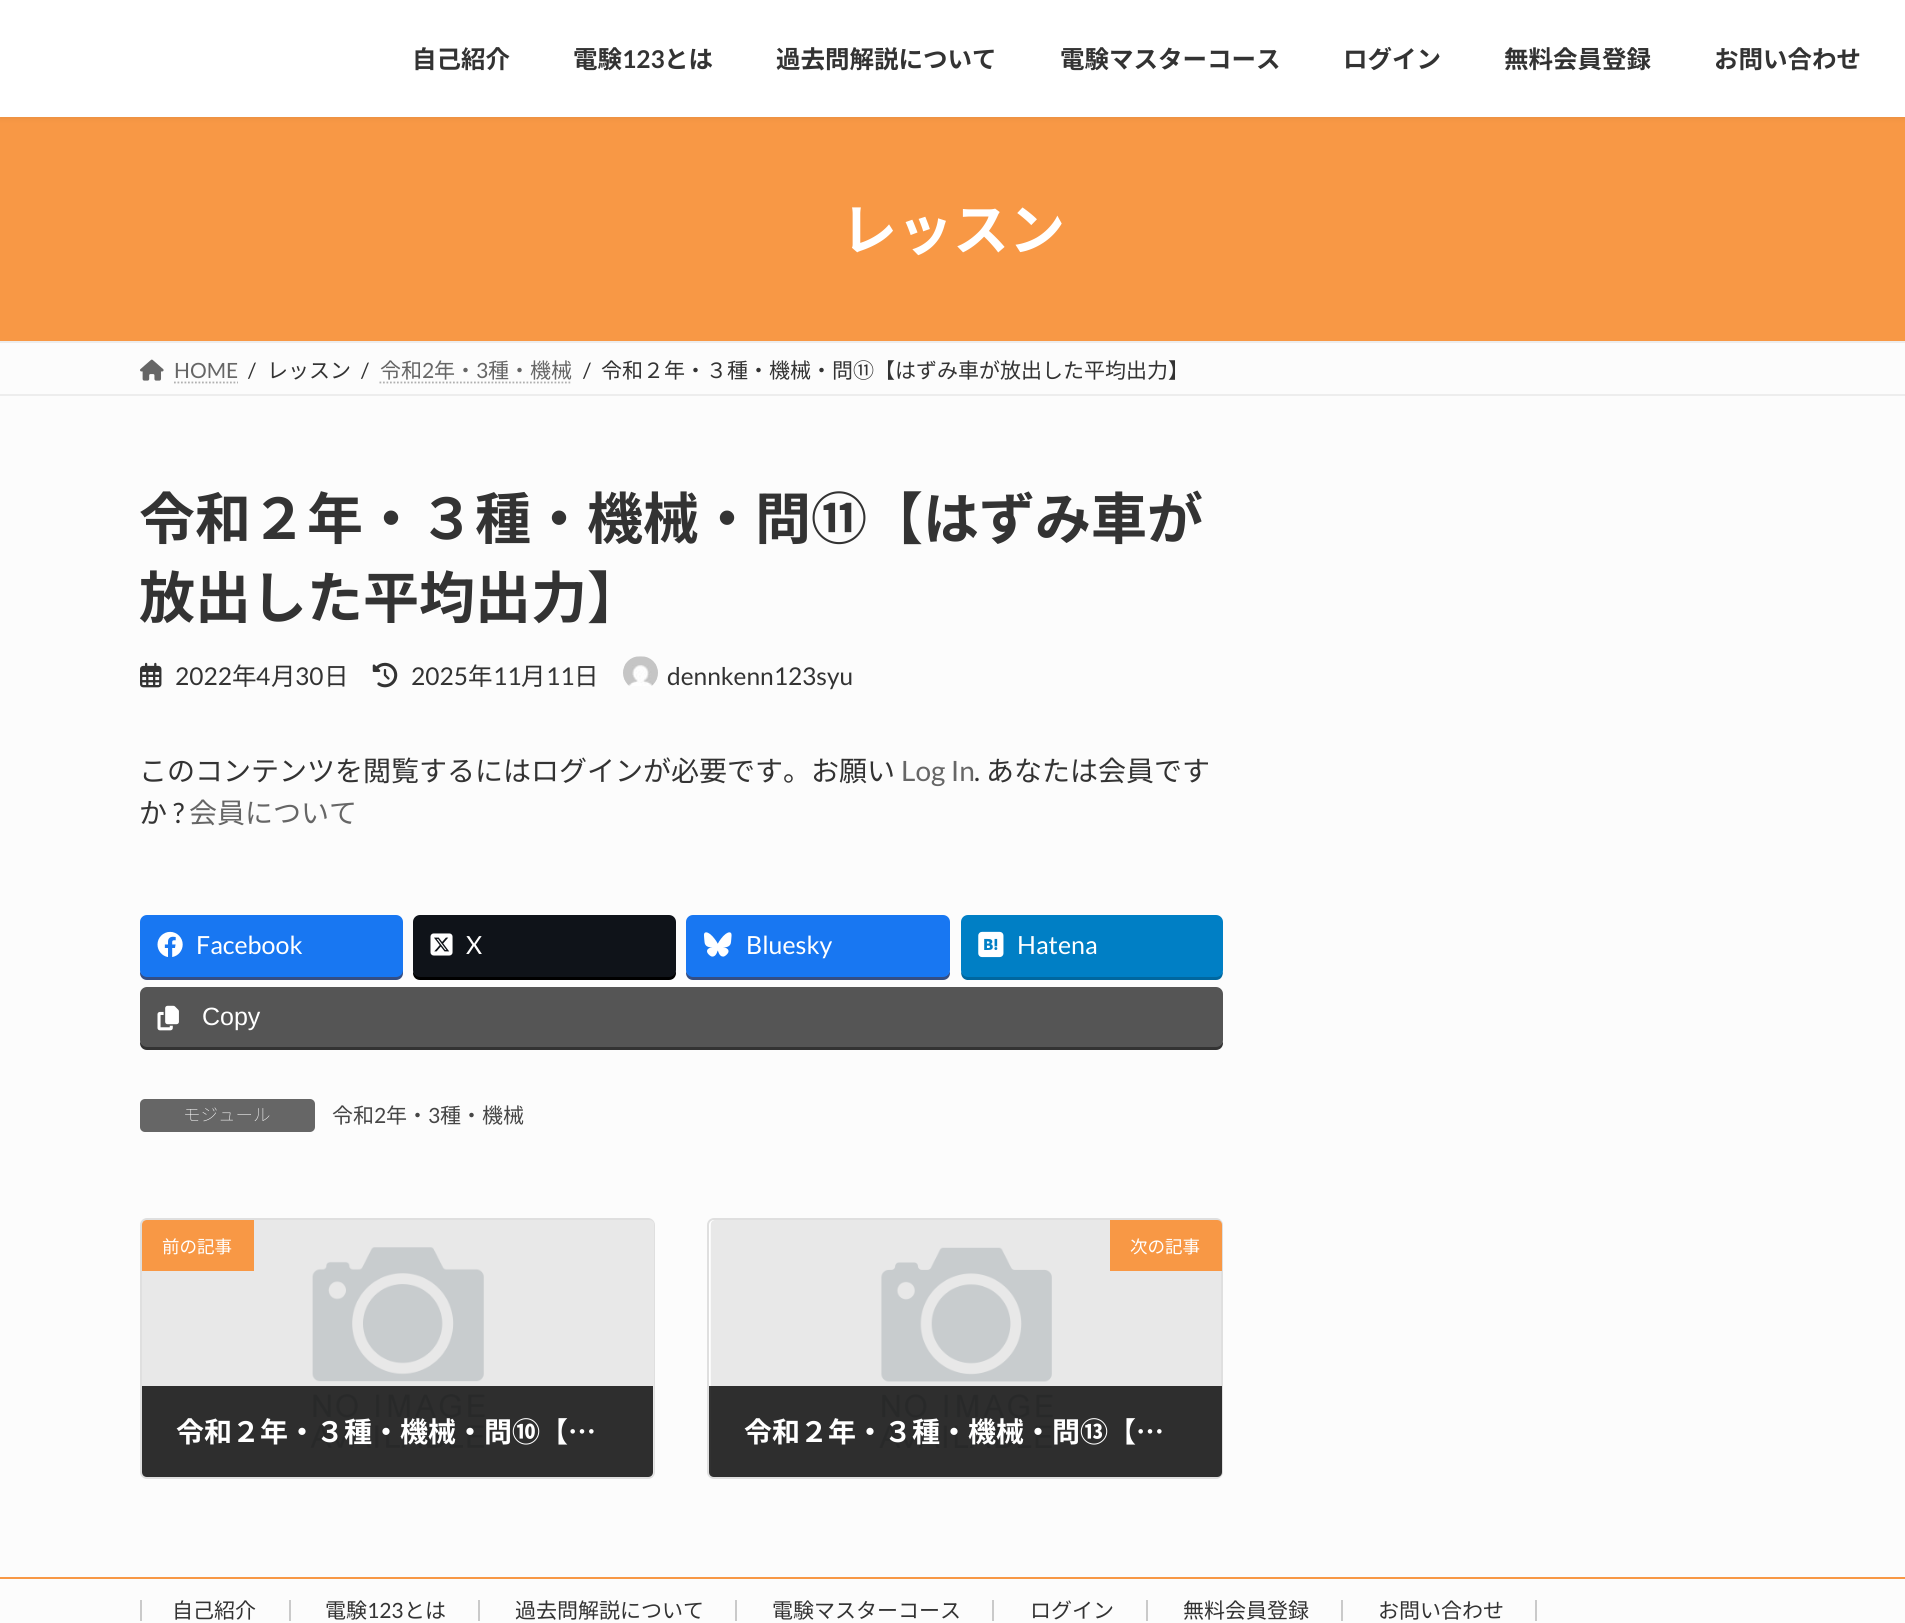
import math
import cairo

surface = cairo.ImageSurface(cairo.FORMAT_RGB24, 1905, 1623)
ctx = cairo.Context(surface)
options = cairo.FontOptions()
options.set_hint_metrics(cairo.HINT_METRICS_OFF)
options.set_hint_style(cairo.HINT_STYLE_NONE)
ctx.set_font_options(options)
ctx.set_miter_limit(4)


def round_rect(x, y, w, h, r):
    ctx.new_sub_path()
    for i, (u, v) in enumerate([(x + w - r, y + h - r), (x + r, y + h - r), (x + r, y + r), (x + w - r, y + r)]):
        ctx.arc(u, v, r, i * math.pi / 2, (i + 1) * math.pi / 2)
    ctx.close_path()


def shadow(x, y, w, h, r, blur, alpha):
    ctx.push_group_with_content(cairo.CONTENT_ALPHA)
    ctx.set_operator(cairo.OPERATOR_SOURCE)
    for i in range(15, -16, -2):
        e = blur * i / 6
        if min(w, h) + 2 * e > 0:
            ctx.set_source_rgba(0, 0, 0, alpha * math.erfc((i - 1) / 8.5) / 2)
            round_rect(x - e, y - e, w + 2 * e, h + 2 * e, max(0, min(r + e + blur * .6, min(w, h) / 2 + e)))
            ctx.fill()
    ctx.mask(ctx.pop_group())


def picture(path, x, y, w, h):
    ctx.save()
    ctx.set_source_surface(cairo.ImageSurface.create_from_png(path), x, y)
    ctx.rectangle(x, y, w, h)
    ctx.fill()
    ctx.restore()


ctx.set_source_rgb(0.988, 0.988, 0.988)
ctx.paint()
ctx.set_source_rgb(0.969, 0.596, 0.271)
ctx.rectangle(0, 117, 1905, 224)
ctx.fill()
ctx.set_source_rgb(0, 0, 0)
shadow(0, 2, 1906, 117, 0, 2.5, 0.05)
ctx.set_source_rgb(1, 1, 1)
ctx.rectangle(0, 0, 1905, 117)
ctx.fill()
ctx.select_font_face("Noto Sans JP", cairo.FONT_SLANT_NORMAL, cairo.FONT_WEIGHT_BOLD)
ctx.set_font_size(24.5)
ctx.set_source_rgb(0.2, 0.2, 0.2)
ctx.move_to(412, 68)
ctx.show_text("自己紹介")
ctx.move_to(573, 68)
ctx.show_text("電験")
ctx.select_font_face("Lato", cairo.FONT_SLANT_NORMAL, cairo.FONT_WEIGHT_BOLD)
ctx.move_to(622, 68)
ctx.show_text("123")
ctx.select_font_face("Noto Sans JP", cairo.FONT_SLANT_NORMAL, cairo.FONT_WEIGHT_BOLD)
ctx.move_to(664, 68)
ctx.show_text("とは")
ctx.move_to(776, 68)
ctx.show_text("過去問解説について")
ctx.move_to(1060, 68)
ctx.show_text("電験マスターコース")
ctx.move_to(1343, 68)
ctx.show_text("ログイン")
ctx.move_to(1504, 68)
ctx.show_text("無料会員登録")
ctx.move_to(1714, 68)
ctx.show_text("お問い合わせ")
ctx.set_font_size(56)
ctx.set_source_rgb(1, 1, 1)
ctx.move_to(841, 250)
ctx.show_text("レッスン")
ctx.set_source_rgb(0.929, 0.929, 0.929)
ctx.rectangle(0, 341, 1905, 2)
ctx.fill()
ctx.rectangle(0, 394, 1905, 2)
ctx.fill()
picture("img1.png", 140, 359, 24, 22)
ctx.select_font_face("Lato")
ctx.set_font_size(21)
ctx.set_source_rgb(0.4, 0.4, 0.4)
ctx.move_to(174, 378)
ctx.show_text("HOME")
ctx.new_path()
ctx.move_to(174, 382.5)
ctx.line_to(238, 382.5)
ctx.set_source_rgb(0.69, 0.69, 0.69)
ctx.set_line_width(1.8)
ctx.set_dash([1.75, 1.75])
ctx.stroke()
ctx.set_source_rgb(0.2, 0.2, 0.2)
ctx.move_to(248, 378)
ctx.show_text("/")
ctx.select_font_face("Noto Sans JP")
ctx.move_to(267, 378)
ctx.show_text("レッスン")
ctx.select_font_face("Lato")
ctx.move_to(361, 378)
ctx.show_text("/")
ctx.select_font_face("Noto Sans JP")
ctx.set_source_rgb(0.4, 0.4, 0.4)
ctx.move_to(380, 378)
ctx.show_text("令和")
ctx.select_font_face("Lato")
ctx.move_to(422, 378)
ctx.show_text("2")
ctx.select_font_face("Noto Sans JP")
ctx.move_to(434, 378)
ctx.show_text("年・")
ctx.select_font_face("Lato")
ctx.move_to(476, 378)
ctx.show_text("3")
ctx.new_path()
ctx.move_to(379.5, 382.5)
ctx.line_to(572, 382.5)
ctx.set_source_rgb(0.69, 0.69, 0.69)
ctx.stroke()
ctx.select_font_face("Noto Sans JP")
ctx.set_source_rgb(0.4, 0.4, 0.4)
ctx.move_to(488, 378)
ctx.show_text("種・機械")
ctx.select_font_face("Lato")
ctx.set_source_rgb(0.2, 0.2, 0.2)
ctx.move_to(583, 378)
ctx.show_text("/")
ctx.select_font_face("Noto Sans JP")
ctx.move_to(601, 378)
ctx.show_text("令和２年・３種・機械・問⑪【はずみ車が放出した平均出力】")
ctx.select_font_face("Noto Sans JP", cairo.FONT_SLANT_NORMAL, cairo.FONT_WEIGHT_BOLD)
ctx.set_font_size(56)
ctx.move_to(139, 539)
ctx.show_text("令和２年・３種・機械・問⑪【はずみ車が")
ctx.move_to(139, 618)
ctx.show_text("放出した平均出力】")
picture("img2.png", 140, 662, 22, 26)
ctx.select_font_face("Lato")
ctx.set_font_size(24.5)
ctx.move_to(175, 685)
ctx.show_text("2022")
ctx.select_font_face("Noto Sans JP")
ctx.move_to(232, 685)
ctx.show_text("年")
ctx.select_font_face("Lato")
ctx.move_to(256, 685)
ctx.show_text("4")
ctx.select_font_face("Noto Sans JP")
ctx.move_to(271, 685)
ctx.show_text("月")
ctx.select_font_face("Lato")
ctx.move_to(295, 685)
ctx.show_text("30")
ctx.select_font_face("Noto Sans JP")
ctx.move_to(324, 685)
ctx.show_text("日")
picture("img3.png", 372, 662, 26, 26)
ctx.select_font_face("Lato")
ctx.move_to(411, 685)
ctx.show_text("2025")
ctx.select_font_face("Noto Sans JP")
ctx.move_to(468, 685)
ctx.show_text("年")
ctx.select_font_face("Lato")
ctx.move_to(493, 685)
ctx.show_text("11")
ctx.select_font_face("Noto Sans JP")
ctx.move_to(521, 685)
ctx.show_text("月")
ctx.select_font_face("Lato")
ctx.move_to(546, 685)
ctx.show_text("11")
ctx.select_font_face("Noto Sans JP")
ctx.move_to(574, 685)
ctx.show_text("日")
picture("img4.png", 623, 656, 35, 30)
ctx.select_font_face("Lato")
ctx.move_to(667, 685)
ctx.show_text("dennkenn123syu")
ctx.select_font_face("Noto Sans JP")
ctx.set_font_size(28)
ctx.move_to(139, 781)
ctx.show_text("このコンテンツを閲覧するにはログインが必要です。お願い")
ctx.select_font_face("Lato")
ctx.set_source_rgb(0.4, 0.4, 0.4)
ctx.move_to(901, 781)
ctx.show_text("Log In")
ctx.set_source_rgb(0.2, 0.2, 0.2)
ctx.move_to(974, 781)
ctx.show_text(".")
ctx.select_font_face("Noto Sans JP")
ctx.move_to(986, 781)
ctx.show_text("あなたは会員です")
ctx.move_to(139, 823)
ctx.show_text("か")
ctx.select_font_face("Lato")
ctx.move_to(173, 823)
ctx.show_text("?")
ctx.select_font_face("Noto Sans JP")
ctx.set_source_rgb(0.4, 0.4, 0.4)
ctx.move_to(189, 823)
ctx.show_text("会員について")
ctx.set_source_rgb(0.204, 0.306, 0.518)
ctx.new_path()
ctx.move_to(140, 970)
ctx.line_to(140, 973)
ctx.curve_to(140, 977, 143, 980, 147, 980)
ctx.line_to(396, 980)
ctx.curve_to(400, 980, 403, 977, 403, 973)
ctx.line_to(403, 926)
ctx.line_to(402, 923)
ctx.line_to(402, 970)
ctx.curve_to(402, 973, 399, 976, 396, 976)
ctx.line_to(147, 976)
ctx.curve_to(143, 976, 140, 973, 140, 970)
ctx.close_path()
ctx.fill()
ctx.set_source_rgb(0.094, 0.467, 0.949)
round_rect(140, 915, 263, 62, 7)
ctx.fill()
picture("img5.png", 157, 931, 26, 26)
ctx.select_font_face("Lato")
ctx.set_font_size(25)
ctx.set_source_rgb(1, 1, 1)
ctx.move_to(196, 954)
ctx.show_text("Facebook")
ctx.set_source_rgb(0, 0, 0)
ctx.new_path()
ctx.move_to(413, 970)
ctx.line_to(413, 973)
ctx.curve_to(413, 977, 416, 980, 420, 980)
ctx.line_to(669, 980)
ctx.curve_to(673, 980, 676, 977, 676, 973)
ctx.line_to(676, 926)
ctx.line_to(676, 923)
ctx.line_to(676, 970)
ctx.curve_to(676, 973, 672, 976, 668, 976)
ctx.line_to(420, 976)
ctx.curve_to(416, 976, 413, 973, 413, 970)
ctx.close_path()
ctx.fill()
ctx.set_source_rgb(0.059, 0.078, 0.098)
round_rect(413, 915, 263, 62, 7)
ctx.fill()
picture("img6.png", 430, 933, 23, 23)
ctx.set_source_rgb(1, 1, 1)
ctx.move_to(466, 954)
ctx.show_text("X")
ctx.set_source_rgb(0.204, 0.306, 0.518)
ctx.new_path()
ctx.move_to(686, 970)
ctx.line_to(686, 973)
ctx.curve_to(686, 977, 689, 980, 693, 980)
ctx.line_to(943, 980)
ctx.curve_to(947, 980, 950, 977, 950, 973)
ctx.line_to(950, 971)
ctx.curve_to(949, 974, 946, 976, 943, 976)
ctx.line_to(693, 976)
ctx.curve_to(689, 976, 686, 973, 686, 970)
ctx.close_path()
ctx.fill()
ctx.set_source_rgb(0.094, 0.467, 0.949)
round_rect(686, 915, 264, 62, 7)
ctx.fill()
picture("img7.png", 704, 932, 28, 25)
ctx.set_source_rgb(1, 1, 1)
ctx.move_to(746, 954)
ctx.show_text("Bluesky")
ctx.set_source_rgb(0, 0.404, 0.624)
ctx.new_path()
ctx.move_to(961, 971)
ctx.curve_to(961, 975, 962, 979, 967, 980)
ctx.line_to(1216, 980)
ctx.curve_to(1221, 980, 1223, 976, 1223, 971)
ctx.curve_to(1222, 974, 1219, 976, 1216, 976)
ctx.line_to(968, 976)
ctx.curve_to(965, 976, 962, 974, 961, 971)
ctx.close_path()
ctx.fill()
ctx.set_source_rgb(0, 0.498, 0.773)
round_rect(961, 915, 262, 62, 7)
ctx.fill()
picture("img8.png", 978, 931, 26, 27)
ctx.set_source_rgb(1, 1, 1)
ctx.move_to(1017, 954)
ctx.show_text("Hatena")
ctx.set_source_rgb(0.2, 0.2, 0.2)
ctx.new_path()
ctx.move_to(140, 1040)
ctx.line_to(140, 1043)
ctx.curve_to(140, 1047, 143, 1050, 147, 1050)
ctx.line_to(1216, 1050)
ctx.curve_to(1220, 1050, 1223, 1047, 1223, 1043)
ctx.line_to(1223, 1041)
ctx.curve_to(1222, 1044, 1219, 1046, 1216, 1046)
ctx.line_to(147, 1046)
ctx.curve_to(143, 1046, 140, 1043, 140, 1040)
ctx.close_path()
ctx.fill()
ctx.set_source_rgb(0.333, 0.333, 0.333)
round_rect(140, 987, 1083, 60, 7)
ctx.fill()
picture("img9.png", 157, 1005, 22, 26)
ctx.select_font_face("Liberation Sans")
ctx.set_source_rgb(1, 1, 1)
ctx.move_to(202, 1025)
ctx.show_text("Copy")
ctx.set_source_rgb(0.4, 0.4, 0.4)
round_rect(140, 1099, 175, 33, 5)
ctx.fill()
ctx.select_font_face("Noto Sans JP Thin")
ctx.set_font_size(17.5)
ctx.set_source_rgb(1, 1, 1)
ctx.move_to(183, 1121)
ctx.show_text("モジュール")
ctx.select_font_face("Noto Sans JP")
ctx.set_font_size(21)
ctx.set_source_rgb(0.275, 0.275, 0.275)
ctx.move_to(332, 1123)
ctx.show_text("令和")
ctx.select_font_face("Lato")
ctx.move_to(374, 1123)
ctx.show_text("2")
ctx.select_font_face("Noto Sans JP")
ctx.move_to(386, 1123)
ctx.show_text("年・")
ctx.select_font_face("Lato")
ctx.move_to(428, 1123)
ctx.show_text("3")
ctx.select_font_face("Noto Sans JP")
ctx.move_to(440, 1123)
ctx.show_text("種・機械")
round_rect(141, 1219, 513, 259, 6)
ctx.set_source_rgb(0.875, 0.875, 0.875)
ctx.set_line_width(2)
ctx.set_dash([])
ctx.stroke()
picture("img10.png", 142, 1220, 512, 257)
ctx.save()
round_rect(142, 1220, 511, 257, 5)
ctx.clip()
ctx.set_source_rgb(0.898, 0.898, 0.898)
ctx.rectangle(142, 1475, 511, 2)
ctx.fill()
ctx.restore()
ctx.set_source_rgb(0.969, 0.596, 0.271)
ctx.new_path()
ctx.move_to(147, 1220)
ctx.line_to(254, 1220)
ctx.line_to(254, 1271)
ctx.line_to(142, 1271)
ctx.line_to(142, 1225)
ctx.curve_to(142, 1222, 144, 1220, 147, 1220)
ctx.close_path()
ctx.fill()
ctx.set_font_size(17.5)
ctx.set_source_rgb(1, 1, 1)
ctx.move_to(162, 1253)
ctx.show_text("前の記事")
ctx.set_source_rgba(0, 0, 0, 0.8)
ctx.new_path()
ctx.move_to(142, 1386)
ctx.line_to(653, 1386)
ctx.line_to(653, 1472)
ctx.curve_to(653, 1475, 651, 1477, 648, 1477)
ctx.line_to(147, 1477)
ctx.curve_to(144, 1477, 142, 1475, 142, 1472)
ctx.close_path()
ctx.fill()
ctx.select_font_face("Noto Sans JP", cairo.FONT_SLANT_NORMAL, cairo.FONT_WEIGHT_BOLD)
ctx.set_font_size(28)
ctx.set_source_rgb(1, 1, 1)
ctx.move_to(176, 1442)
ctx.show_text("令和２年・３種・機械・問⑩【…")
round_rect(708, 1219, 514, 259, 6)
ctx.fill_preserve()
ctx.set_source_rgb(0.875, 0.875, 0.875)
ctx.stroke()
picture("img11.png", 710, 1220, 511, 257)
ctx.save()
round_rect(709, 1220, 513, 257, 5)
ctx.clip()
ctx.set_source_rgb(0.898, 0.898, 0.898)
ctx.rectangle(709, 1475, 513, 2)
ctx.fill()
ctx.restore()
ctx.set_source_rgb(0.969, 0.596, 0.271)
ctx.new_path()
ctx.move_to(1110, 1220)
ctx.line_to(1217, 1220)
ctx.curve_to(1220, 1220, 1222, 1222, 1222, 1225)
ctx.line_to(1222, 1271)
ctx.line_to(1110, 1271)
ctx.close_path()
ctx.fill()
ctx.select_font_face("Noto Sans JP")
ctx.set_font_size(17.5)
ctx.set_source_rgb(1, 1, 1)
ctx.move_to(1130, 1253)
ctx.show_text("次の記事")
ctx.set_source_rgba(0, 0, 0, 0.8)
ctx.new_path()
ctx.move_to(709, 1386)
ctx.line_to(1222, 1386)
ctx.line_to(1222, 1472)
ctx.curve_to(1222, 1475, 1220, 1477, 1217, 1477)
ctx.line_to(714, 1477)
ctx.curve_to(711, 1477, 709, 1475, 709, 1472)
ctx.close_path()
ctx.fill()
ctx.select_font_face("Noto Sans JP", cairo.FONT_SLANT_NORMAL, cairo.FONT_WEIGHT_BOLD)
ctx.set_font_size(28)
ctx.set_source_rgb(1, 1, 1)
ctx.move_to(744, 1442)
ctx.show_text("令和２年・３種・機械・問⑬【…")
ctx.set_source_rgb(0.969, 0.596, 0.271)
ctx.rectangle(0, 1577, 1905, 2)
ctx.fill()
ctx.set_source_rgb(0.792, 0.792, 0.792)
ctx.rectangle(289, 1600, 2, 21)
ctx.fill()
ctx.rectangle(140, 1600, 2, 21)
ctx.fill()
ctx.select_font_face("Noto Sans JP")
ctx.set_font_size(21)
ctx.set_source_rgb(0.2, 0.2, 0.2)
ctx.move_to(172, 1618)
ctx.show_text("自己紹介")
ctx.set_source_rgb(0.792, 0.792, 0.792)
ctx.rectangle(478, 1600, 2, 21)
ctx.fill()
ctx.set_source_rgb(0.2, 0.2, 0.2)
ctx.move_to(325, 1618)
ctx.show_text("電験")
ctx.select_font_face("Lato")
ctx.move_to(367, 1618)
ctx.show_text("123")
ctx.select_font_face("Noto Sans JP")
ctx.move_to(404, 1618)
ctx.show_text("とは")
ctx.set_source_rgb(0.792, 0.792, 0.792)
ctx.rectangle(735, 1600, 2, 21)
ctx.fill()
ctx.set_source_rgb(0.2, 0.2, 0.2)
ctx.move_to(515, 1618)
ctx.show_text("過去問解説について")
ctx.set_source_rgb(0.792, 0.792, 0.792)
ctx.rectangle(992, 1600, 2, 21)
ctx.fill()
ctx.set_source_rgb(0.2, 0.2, 0.2)
ctx.move_to(772, 1618)
ctx.show_text("電験マスターコース")
ctx.set_source_rgb(0.792, 0.792, 0.792)
ctx.rectangle(1146, 1600, 2, 21)
ctx.fill()
ctx.set_source_rgb(0.2, 0.2, 0.2)
ctx.move_to(1030, 1618)
ctx.show_text("ログイン")
ctx.set_source_rgb(0.792, 0.792, 0.792)
ctx.rectangle(1341, 1600, 2, 21)
ctx.fill()
ctx.set_source_rgb(0.2, 0.2, 0.2)
ctx.move_to(1183, 1618)
ctx.show_text("無料会員登録")
ctx.set_source_rgb(0.792, 0.792, 0.792)
ctx.rectangle(1535, 1600, 2, 21)
ctx.fill()
ctx.set_source_rgb(0.2, 0.2, 0.2)
ctx.move_to(1378, 1618)
ctx.show_text("お問い合わせ")
surface.write_to_png("page.png")
